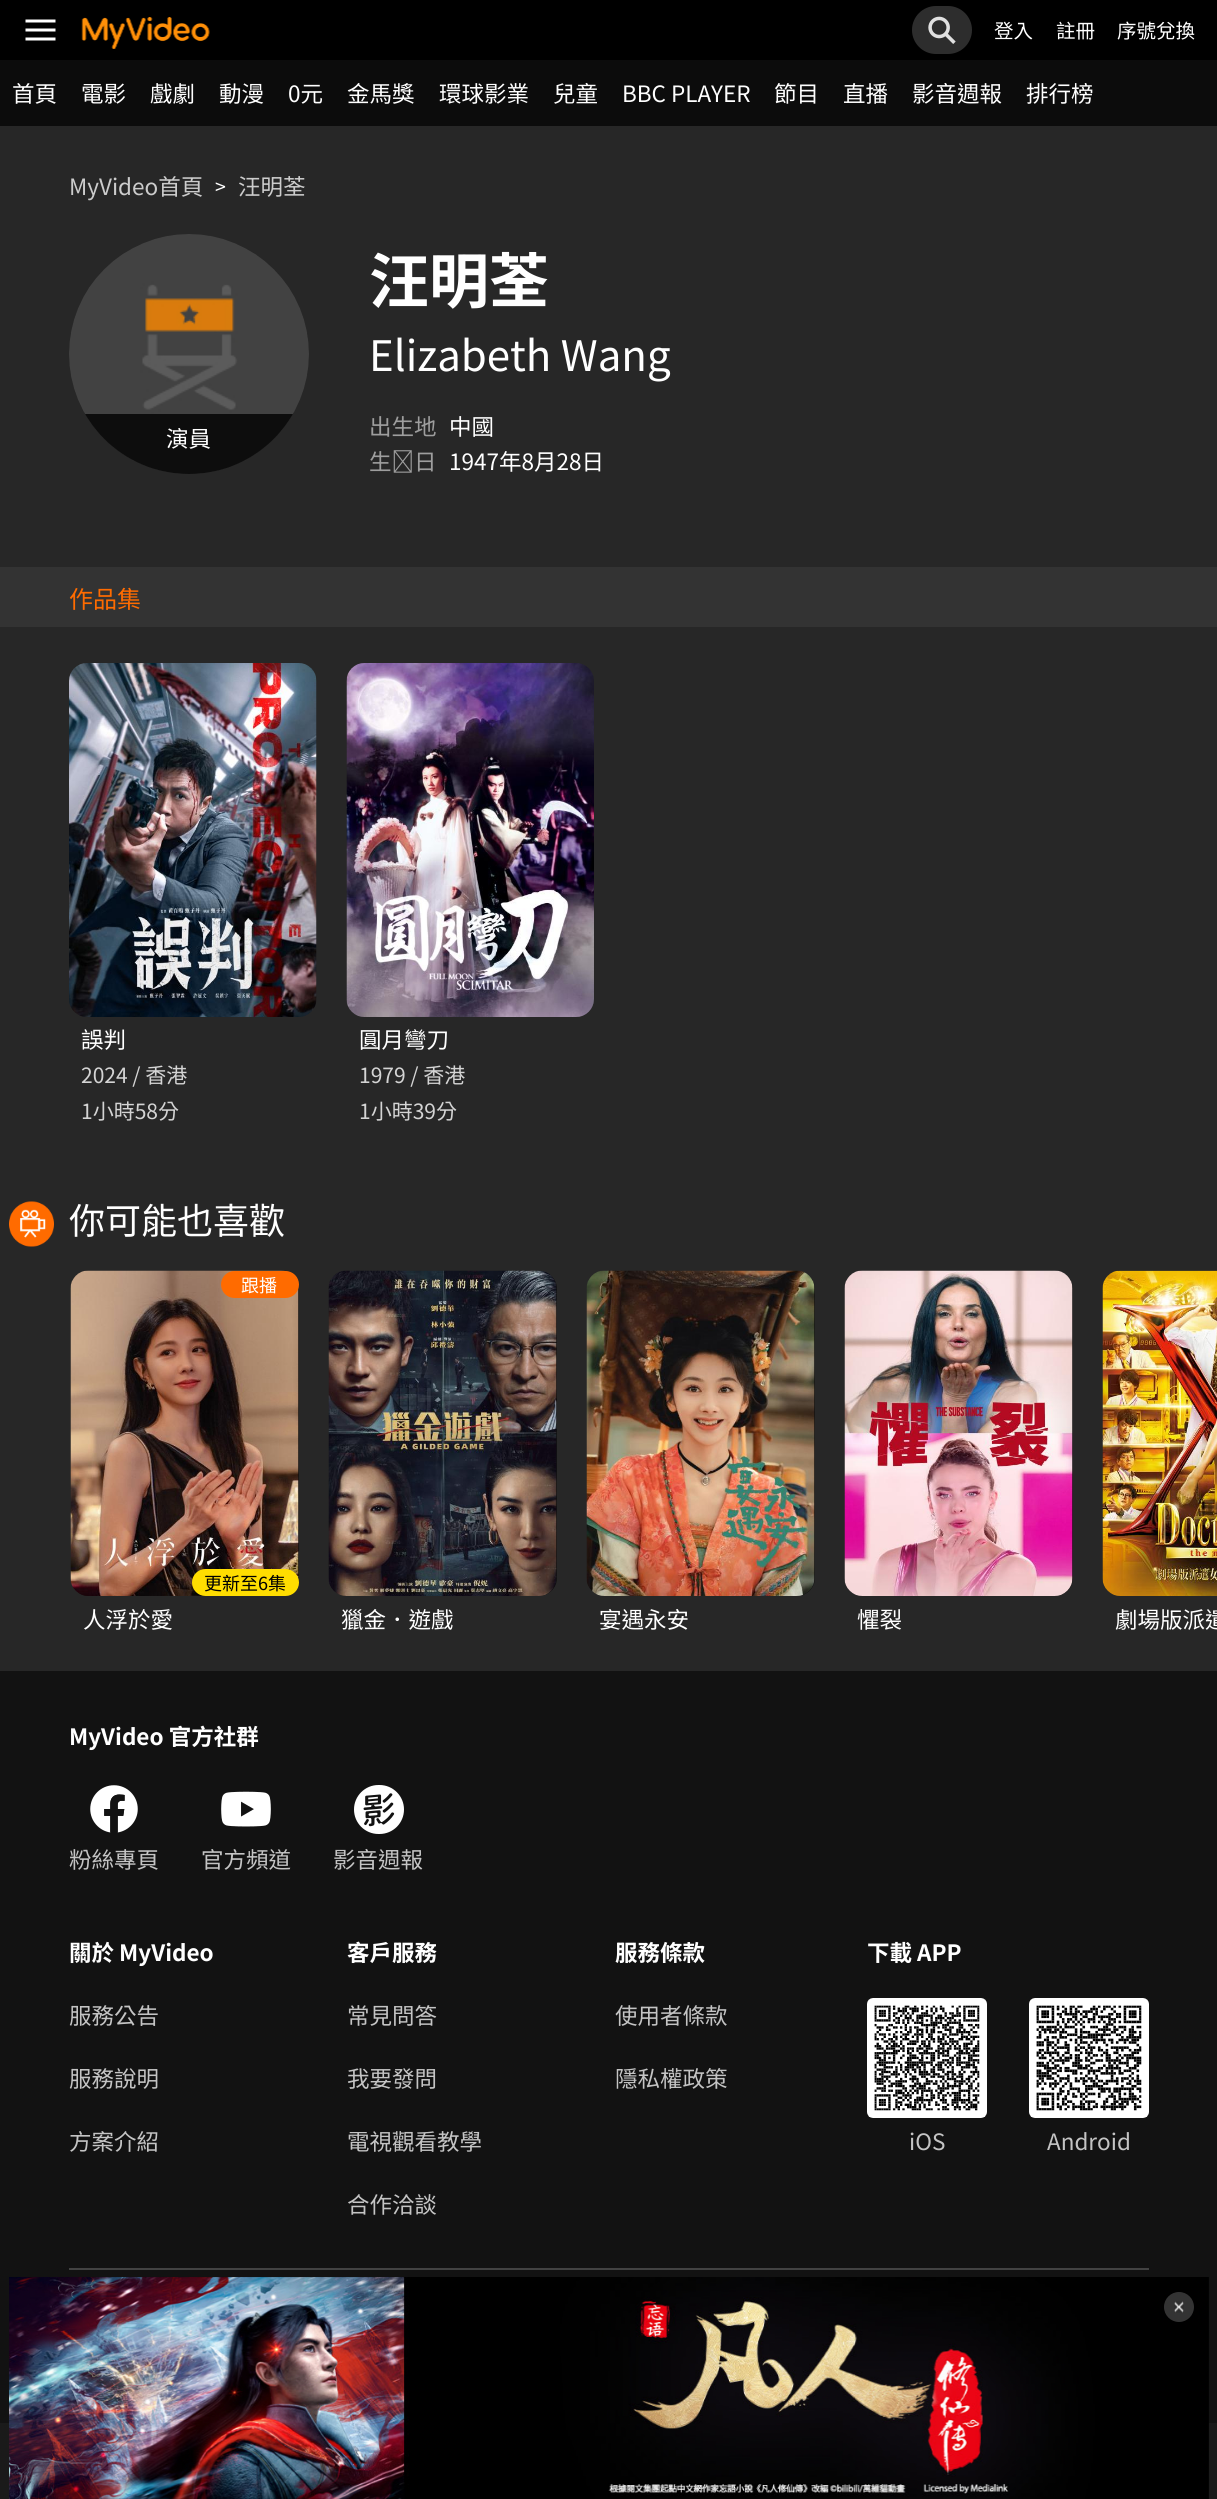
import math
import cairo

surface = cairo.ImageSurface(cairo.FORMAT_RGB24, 1217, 2499)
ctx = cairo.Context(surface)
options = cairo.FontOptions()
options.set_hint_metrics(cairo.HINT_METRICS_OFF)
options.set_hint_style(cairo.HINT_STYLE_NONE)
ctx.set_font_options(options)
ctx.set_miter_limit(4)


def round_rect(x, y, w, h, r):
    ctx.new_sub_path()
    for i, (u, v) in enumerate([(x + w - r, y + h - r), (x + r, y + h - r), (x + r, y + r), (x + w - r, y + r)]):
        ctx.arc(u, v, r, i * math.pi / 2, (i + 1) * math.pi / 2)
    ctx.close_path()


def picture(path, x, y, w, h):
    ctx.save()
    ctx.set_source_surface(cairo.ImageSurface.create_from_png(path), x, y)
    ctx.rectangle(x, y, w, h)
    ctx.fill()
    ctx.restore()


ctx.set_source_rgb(0.102, 0.102, 0.102)
ctx.paint()
ctx.set_source_rgb(0, 0, 0)
ctx.rectangle(0, 0, 1217, 60)
ctx.fill()
picture("img1.png", 25, 19, 31, 22)
picture("img2.png", 81, 17, 129, 32)
ctx.set_source_rgb(0.176, 0.176, 0.176)
round_rect(912, 6, 60, 48, 24)
ctx.fill()
picture("img3.png", 928, 16, 28, 28)
ctx.select_font_face("Noto Sans TC")
ctx.set_font_size(19.5)
ctx.set_source_rgb(1, 1, 1)
ctx.move_to(994, 38)
ctx.show_text("登入")
ctx.move_to(1056, 38)
ctx.show_text("註冊")
ctx.move_to(1117, 38)
ctx.show_text("序號兌換")
ctx.set_source_rgb(0.047, 0.047, 0.047)
ctx.rectangle(0, 60, 1217, 66)
ctx.fill()
ctx.set_font_size(22.5)
ctx.set_source_rgb(1, 1, 1)
ctx.move_to(12, 102)
ctx.show_text("首頁")
ctx.move_to(81, 102)
ctx.show_text("電影")
ctx.move_to(150, 102)
ctx.show_text("戲劇")
ctx.move_to(219, 102)
ctx.show_text("動漫")
ctx.move_to(288, 102)
ctx.show_text("0元")
ctx.move_to(347, 102)
ctx.show_text("金馬獎")
ctx.move_to(439, 102)
ctx.show_text("環球影業")
ctx.move_to(553, 102)
ctx.show_text("兒童")
ctx.move_to(622, 102)
ctx.show_text("BBC PLAYER")
ctx.move_to(774, 102)
ctx.show_text("節目")
ctx.move_to(843, 102)
ctx.show_text("直播")
ctx.move_to(912, 102)
ctx.show_text("影音週報")
ctx.move_to(1026, 102)
ctx.show_text("排行榜")
ctx.set_source_rgb(0.071, 0.071, 0.071)
ctx.rectangle(0, 1671, 1217, 752)
ctx.fill()
picture("img4.png", 9, 2277, 1200, 222)
ctx.set_source_rgb(0.2, 0.2, 0.2)
ctx.arc(1179, 2307, 15, 0, 2 * math.pi)
ctx.fill()
picture("img5.png", 1174, 2301, 10, 12)
ctx.set_source_rgb(0.153, 0.153, 0.153)
ctx.rectangle(0, 126, 1217, 1545)
ctx.fill()
ctx.set_source_rgb(0.8, 0.8, 0.8)
ctx.move_to(69, 195)
ctx.show_text("MyVideo首頁")
ctx.set_font_size(19.5)
ctx.set_source_rgb(1, 1, 1)
ctx.move_to(215, 194)
ctx.show_text(">")
ctx.set_font_size(22.5)
ctx.set_source_rgb(0.8, 0.8, 0.8)
ctx.move_to(238, 195)
ctx.show_text("汪明荃")
picture("img6.png", 69, 234, 240, 240)
picture("img7.png", 69, 234, 240, 240)
ctx.save()
round_rect(69, 234, 240, 240, 120)
ctx.clip()
ctx.set_source_rgba(0, 0, 0, 0.8)
ctx.rectangle(85, 414, 208, 60)
ctx.fill()
ctx.restore()
ctx.set_source_rgb(1, 1, 1)
ctx.move_to(166, 447)
ctx.show_text("演員")
ctx.select_font_face("Noto Sans TC", cairo.FONT_SLANT_NORMAL, cairo.FONT_WEIGHT_BOLD)
ctx.set_font_size(60)
ctx.move_to(369, 303)
ctx.show_text("汪明荃")
ctx.select_font_face("Noto Sans TC")
ctx.set_font_size(42)
ctx.move_to(369, 371)
ctx.show_text("Elizabeth Wang")
ctx.set_font_size(22.5)
ctx.set_source_rgb(0.62, 0.62, 0.62)
ctx.move_to(369, 435)
ctx.show_text("出生地")
ctx.set_source_rgb(1, 1, 1)
ctx.move_to(449, 435)
ctx.show_text("中國")
ctx.set_source_rgb(0.62, 0.62, 0.62)
ctx.move_to(369, 470)
ctx.show_text("生 日")
ctx.set_source_rgb(1, 1, 1)
ctx.move_to(449, 470)
ctx.show_text("1947年8月28日")
ctx.set_source_rgb(0.2, 0.2, 0.2)
ctx.rectangle(0, 567, 1217, 60)
ctx.fill()
ctx.set_font_size(24)
ctx.set_source_rgb(1, 0.42, 0)
ctx.move_to(69, 608)
ctx.show_text("作品集")
picture("img8.png", 69, 663, 248, 354)
ctx.set_font_size(22.5)
ctx.set_source_rgb(1, 1, 1)
ctx.move_to(81, 1048)
ctx.show_text("誤判")
ctx.set_font_size(21)
ctx.set_source_rgb(0.831, 0.831, 0.831)
ctx.move_to(81, 1083)
ctx.show_text("2024 / 香港")
ctx.move_to(81, 1119)
ctx.show_text("1小時58分")
picture("img9.png", 346, 663, 248, 354)
ctx.set_font_size(22.5)
ctx.set_source_rgb(1, 1, 1)
ctx.move_to(359, 1048)
ctx.show_text("圓月彎刀")
ctx.set_font_size(21)
ctx.set_source_rgb(0.831, 0.831, 0.831)
ctx.move_to(359, 1083)
ctx.show_text("1979 / 香港")
ctx.move_to(359, 1119)
ctx.show_text("1小時39分")
picture("img10.png", 9, 1201, 45, 46)
ctx.set_font_size(36)
ctx.set_source_rgb(1, 1, 1)
ctx.move_to(69, 1234)
ctx.show_text("你可能也喜歡")
ctx.set_source_rgb(0.071, 0.071, 0.071)
round_rect(71, 1271, 228, 325, 18)
ctx.fill()
picture("img11.png", 70, 1270, 229, 326)
ctx.set_source_rgb(1, 0.42, 0)
round_rect(221, 1271, 78, 27, 13.5)
ctx.fill()
ctx.set_font_size(18)
ctx.set_source_rgb(1, 1, 1)
ctx.move_to(241, 1292)
ctx.show_text("跟播")
ctx.set_source_rgb(1, 0.867, 0)
round_rect(192, 1569, 107, 27, 13.5)
ctx.fill()
ctx.set_source_rgb(0, 0, 0)
ctx.move_to(204, 1590)
ctx.show_text("更新至6集")
ctx.set_font_size(22.5)
ctx.set_source_rgb(1, 1, 1)
ctx.move_to(83, 1628)
ctx.show_text("人浮於愛")
ctx.set_source_rgb(0.071, 0.071, 0.071)
round_rect(329, 1271, 228, 325, 18)
ctx.fill()
picture("img12.png", 328, 1270, 229, 326)
ctx.set_source_rgb(1, 1, 1)
ctx.move_to(341, 1628)
ctx.show_text("獵金．遊戲")
ctx.set_source_rgb(0.071, 0.071, 0.071)
round_rect(587, 1271, 228, 325, 18)
ctx.fill()
picture("img13.png", 586, 1270, 229, 326)
ctx.set_source_rgb(1, 1, 1)
ctx.move_to(599, 1628)
ctx.show_text("宴遇永安")
ctx.set_source_rgb(0.071, 0.071, 0.071)
round_rect(845, 1271, 228, 325, 18)
ctx.fill()
picture("img14.png", 844, 1270, 229, 326)
ctx.set_source_rgb(1, 1, 1)
ctx.move_to(857, 1628)
ctx.show_text("懼裂")
picture("img15.png", 1102, 1270, 115, 326)
ctx.move_to(1115, 1628)
ctx.show_text("劇場版派遣")
ctx.select_font_face("Noto Sans TC", cairo.FONT_SLANT_NORMAL, cairo.FONT_WEIGHT_BOLD)
ctx.move_to(69, 1745)
ctx.show_text("MyVideo 官方社群")
picture("img16.png", 90, 1785, 48, 48)
ctx.select_font_face("Noto Sans TC")
ctx.set_source_rgb(0.769, 0.769, 0.769)
ctx.move_to(69, 1868)
ctx.show_text("粉絲專頁")
picture("img17.png", 221, 1791, 50, 36)
ctx.move_to(201, 1868)
ctx.show_text("官方頻道")
picture("img18.png", 354, 1785, 50, 49)
ctx.move_to(333, 1868)
ctx.show_text("影音週報")
ctx.select_font_face("Noto Sans TC", cairo.FONT_SLANT_NORMAL, cairo.FONT_WEIGHT_BOLD)
ctx.set_source_rgb(1, 1, 1)
ctx.move_to(69, 1961)
ctx.show_text("關於 MyVideo")
ctx.select_font_face("Noto Sans TC")
ctx.set_source_rgb(0.769, 0.769, 0.769)
ctx.move_to(69, 2024)
ctx.show_text("服務公告")
ctx.move_to(69, 2087)
ctx.show_text("服務說明")
ctx.move_to(69, 2150)
ctx.show_text("方案介紹")
ctx.select_font_face("Noto Sans TC", cairo.FONT_SLANT_NORMAL, cairo.FONT_WEIGHT_BOLD)
ctx.set_source_rgb(1, 1, 1)
ctx.move_to(347, 1961)
ctx.show_text("客戶服務")
ctx.select_font_face("Noto Sans TC")
ctx.set_source_rgb(0.769, 0.769, 0.769)
ctx.move_to(347, 2024)
ctx.show_text("常見問答")
ctx.move_to(347, 2087)
ctx.show_text("我要發問")
ctx.move_to(347, 2150)
ctx.show_text("電視觀看教學")
ctx.move_to(347, 2213)
ctx.show_text("合作洽談")
ctx.select_font_face("Noto Sans TC", cairo.FONT_SLANT_NORMAL, cairo.FONT_WEIGHT_BOLD)
ctx.set_source_rgb(1, 1, 1)
ctx.move_to(615, 1961)
ctx.show_text("服務條款")
ctx.select_font_face("Noto Sans TC")
ctx.set_source_rgb(0.769, 0.769, 0.769)
ctx.move_to(615, 2024)
ctx.show_text("使用者條款")
ctx.move_to(615, 2087)
ctx.show_text("隱私權政策")
ctx.select_font_face("Noto Sans TC", cairo.FONT_SLANT_NORMAL, cairo.FONT_WEIGHT_BOLD)
ctx.set_source_rgb(1, 1, 1)
ctx.move_to(867, 1961)
ctx.show_text("下載 APP")
picture("img19.png", 867, 1998, 120, 120)
ctx.select_font_face("Noto Sans TC")
ctx.set_source_rgb(0.769, 0.769, 0.769)
ctx.move_to(909, 2150)
ctx.show_text("iOS")
picture("img20.png", 1029, 1998, 120, 120)
ctx.move_to(1047, 2150)
ctx.show_text("Android")
ctx.set_source_rgb(0.259, 0.259, 0.259)
ctx.rectangle(69, 2268, 1080, 2)
ctx.fill()
surface.write_to_png("page.png")
